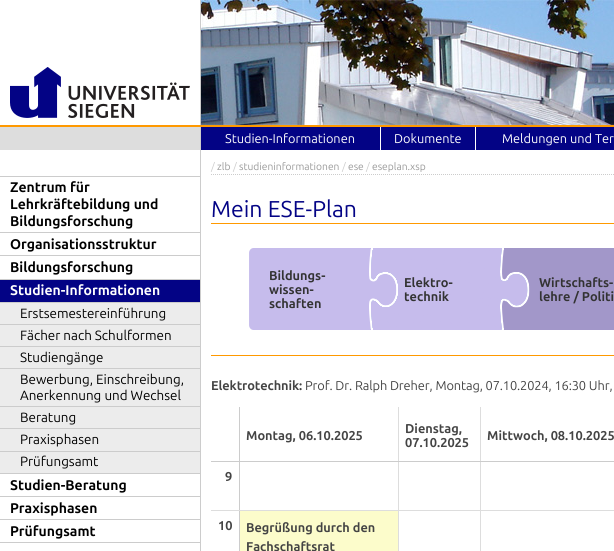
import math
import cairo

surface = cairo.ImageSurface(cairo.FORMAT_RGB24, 614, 551)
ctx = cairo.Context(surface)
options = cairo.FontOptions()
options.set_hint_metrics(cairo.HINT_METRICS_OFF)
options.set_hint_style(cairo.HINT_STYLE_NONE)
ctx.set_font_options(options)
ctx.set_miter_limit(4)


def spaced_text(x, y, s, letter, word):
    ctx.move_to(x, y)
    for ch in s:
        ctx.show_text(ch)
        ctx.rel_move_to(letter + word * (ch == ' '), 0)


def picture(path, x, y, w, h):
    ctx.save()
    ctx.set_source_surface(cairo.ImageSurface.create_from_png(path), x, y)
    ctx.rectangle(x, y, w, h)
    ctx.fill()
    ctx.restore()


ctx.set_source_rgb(1, 1, 1)
ctx.paint()
ctx.set_source_rgb(0.8, 0.8, 0.8)
ctx.rectangle(200, 0, 1, 551)
ctx.fill()
ctx.set_source_rgb(1, 0.6, 0)
ctx.rectangle(0, 125, 614, 2)
ctx.fill()
picture("img1.png", 10, 67, 180, 51)
ctx.set_source_rgb(0.867, 0.867, 0.867)
ctx.rectangle(0, 127, 200, 23)
ctx.fill()
ctx.set_source_rgb(0.8, 0.8, 0.8)
ctx.rectangle(0, 176, 200, 1)
ctx.fill()
ctx.select_font_face("Ubuntu", cairo.FONT_SLANT_NORMAL, cairo.FONT_WEIGHT_BOLD)
ctx.set_font_size(14)
ctx.set_source_rgb(0, 0, 0)
ctx.move_to(10, 192)
ctx.show_text("Zentrum für")
ctx.move_to(10, 209)
ctx.show_text("Lehrkräftebildung und")
ctx.move_to(10, 226)
ctx.show_text("Bildungsforschung")
ctx.set_source_rgb(0.8, 0.8, 0.8)
ctx.rectangle(0, 232, 200, 1)
ctx.fill()
ctx.set_source_rgb(0, 0, 0)
ctx.move_to(10, 249)
ctx.show_text("Organisationsstruktur")
ctx.set_source_rgb(0.8, 0.8, 0.8)
ctx.rectangle(0, 255, 200, 1)
ctx.fill()
ctx.set_source_rgb(0, 0, 0)
ctx.move_to(10, 272)
ctx.show_text("Bildungsforschung")
ctx.set_source_rgb(0.8, 0.8, 0.8)
ctx.rectangle(0, 279, 200, 1)
ctx.fill()
ctx.set_source_rgb(0.012, 0.012, 0.522)
ctx.rectangle(0, 280, 200, 22)
ctx.fill()
ctx.set_source_rgb(1, 1, 1)
ctx.move_to(10, 295)
ctx.show_text("Studien-Informationen")
ctx.set_source_rgb(0.8, 0.8, 0.8)
ctx.rectangle(0, 302, 200, 1)
ctx.fill()
ctx.set_source_rgb(0.922, 0.922, 0.922)
ctx.rectangle(0, 303, 200, 21)
ctx.fill()
ctx.select_font_face("Ubuntu")
ctx.set_font_size(13.4)
ctx.set_source_rgb(0, 0, 0)
ctx.move_to(20, 318)
ctx.show_text("Erstsemestereinführung")
ctx.set_source_rgb(0.8, 0.8, 0.8)
ctx.rectangle(0, 324, 200, 1)
ctx.fill()
ctx.set_source_rgb(0.922, 0.922, 0.922)
ctx.rectangle(0, 325, 200, 21)
ctx.fill()
ctx.set_source_rgb(0, 0, 0)
ctx.move_to(20, 340)
ctx.show_text("Fächer nach Schulformen")
ctx.set_source_rgb(0.8, 0.8, 0.8)
ctx.rectangle(0, 346, 200, 1)
ctx.fill()
ctx.set_source_rgb(0.922, 0.922, 0.922)
ctx.rectangle(0, 347, 200, 21)
ctx.fill()
ctx.set_source_rgb(0, 0, 0)
ctx.move_to(20, 362)
ctx.show_text("Studiengänge")
ctx.set_source_rgb(0.8, 0.8, 0.8)
ctx.rectangle(0, 368, 200, 1)
ctx.fill()
ctx.set_source_rgb(0.922, 0.922, 0.922)
ctx.rectangle(0, 369, 200, 37)
ctx.fill()
ctx.set_source_rgb(0, 0, 0)
ctx.move_to(20, 384)
ctx.show_text("Bewerbung, Einschreibung,")
ctx.move_to(20, 400)
ctx.show_text("Anerkennung und Wechsel")
ctx.set_source_rgb(0.8, 0.8, 0.8)
ctx.rectangle(0, 406, 200, 1)
ctx.fill()
ctx.set_source_rgb(0.922, 0.922, 0.922)
ctx.rectangle(0, 407, 200, 21)
ctx.fill()
ctx.set_source_rgb(0, 0, 0)
ctx.move_to(20, 422)
ctx.show_text("Beratung")
ctx.set_source_rgb(0.8, 0.8, 0.8)
ctx.rectangle(0, 428, 200, 1)
ctx.fill()
ctx.set_source_rgb(0.922, 0.922, 0.922)
ctx.rectangle(0, 429, 200, 22)
ctx.fill()
ctx.set_source_rgb(0, 0, 0)
ctx.move_to(20, 444)
ctx.show_text("Praxisphasen")
ctx.set_source_rgb(0.8, 0.8, 0.8)
ctx.rectangle(0, 451, 200, 1)
ctx.fill()
ctx.set_source_rgb(0.922, 0.922, 0.922)
ctx.rectangle(0, 452, 200, 21)
ctx.fill()
ctx.set_source_rgb(0, 0, 0)
ctx.move_to(20, 466)
ctx.show_text("Prüfungsamt")
ctx.set_source_rgb(0.8, 0.8, 0.8)
ctx.rectangle(0, 473, 200, 1)
ctx.fill()
ctx.select_font_face("Ubuntu", cairo.FONT_SLANT_NORMAL, cairo.FONT_WEIGHT_BOLD)
ctx.set_font_size(14)
ctx.set_source_rgb(0, 0, 0)
ctx.move_to(10, 490)
ctx.show_text("Studien-Beratung")
ctx.set_source_rgb(0.8, 0.8, 0.8)
ctx.rectangle(0, 496, 200, 1)
ctx.fill()
ctx.set_source_rgb(0, 0, 0)
ctx.move_to(10, 513)
ctx.show_text("Praxisphasen")
ctx.set_source_rgb(0.8, 0.8, 0.8)
ctx.rectangle(0, 519, 200, 1)
ctx.fill()
ctx.set_source_rgb(0, 0, 0)
ctx.move_to(10, 536)
ctx.show_text("Prüfungsamt")
ctx.set_source_rgb(0.8, 0.8, 0.8)
ctx.rectangle(0, 542, 200, 1)
ctx.fill()
picture("img2.png", 201, 0, 413, 125)
ctx.set_source_rgb(0.012, 0.012, 0.522)
ctx.rectangle(201, 127, 413, 23)
ctx.fill()
ctx.set_source_rgb(1, 1, 1)
ctx.rectangle(380, 127, 1, 24)
ctx.fill()
ctx.select_font_face("Ubuntu")
ctx.set_font_size(12.75)
ctx.move_to(225, 143)
ctx.show_text("Studien-Informationen")
ctx.rectangle(475, 127, 1, 24)
ctx.fill()
ctx.move_to(394, 143)
ctx.show_text("Dokumente")
ctx.move_to(502, 143)
ctx.show_text("Meldungen und Ter")
ctx.new_path()
ctx.move_to(211, 174.5)
ctx.line_to(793, 174.5)
ctx.set_source_rgb(0.8, 0.8, 0.8)
ctx.set_line_width(1)
ctx.set_dash([1, 1])
ctx.stroke()
ctx.set_font_size(10.25)
ctx.move_to(211, 170)
ctx.show_text("/")
ctx.set_source_rgb(0.6, 0.6, 0.6)
ctx.move_to(217, 170)
ctx.show_text("zlb")
ctx.set_source_rgb(0.8, 0.8, 0.8)
ctx.move_to(233, 170)
ctx.show_text("/")
ctx.set_source_rgb(0.6, 0.6, 0.6)
ctx.move_to(239, 170)
ctx.show_text("studieninformationen")
ctx.set_source_rgb(0.8, 0.8, 0.8)
ctx.move_to(342, 170)
ctx.show_text("/")
ctx.set_source_rgb(0.6, 0.6, 0.6)
ctx.move_to(348, 170)
ctx.show_text("ese")
ctx.set_source_rgb(0.8, 0.8, 0.8)
ctx.move_to(366, 170)
ctx.show_text("/")
ctx.set_source_rgb(0.6, 0.6, 0.6)
ctx.move_to(372, 170)
ctx.show_text("eseplan.xsp")
ctx.set_source_rgb(1, 0.6, 0)
ctx.rectangle(211, 223, 403, 1)
ctx.fill()
ctx.set_font_size(23)
ctx.set_source_rgb(0.012, 0.012, 0.522)
ctx.move_to(211, 217)
ctx.show_text("Mein ESE-Plan")
ctx.set_source_rgb(1, 0.6, 0)
ctx.rectangle(211, 355, 403, 1)
ctx.fill()
picture("img3.png", 249, 248, 365, 82)
ctx.select_font_face("Ubuntu", cairo.FONT_SLANT_NORMAL, cairo.FONT_WEIGHT_BOLD)
ctx.set_font_size(12.8)
ctx.set_source_rgb(0.2, 0.2, 0.2)
ctx.move_to(269, 280)
ctx.show_text("Bildungs-")
ctx.move_to(269, 294)
ctx.show_text("wissen-")
ctx.move_to(269, 308)
ctx.show_text("schaften")
ctx.move_to(404, 287)
ctx.show_text("Elektro-")
ctx.move_to(404, 301)
ctx.show_text("technik")
ctx.move_to(539, 287)
ctx.show_text("Wirtschafts-")
ctx.move_to(539, 301)
ctx.show_text("lehre / Politi")
ctx.set_source_rgb(0.267, 0.267, 0.267)
spaced_text(211, 390, "Elektrotechnik:", -0.1, 0)
ctx.select_font_face("Ubuntu")
spaced_text(305, 390, "Prof. Dr. Ralph Dreher, Montag, 07.10.2024, 16:30 Uhr,", -0.1, 0)
ctx.set_source_rgb(0.867, 0.867, 0.867)
ctx.rectangle(480, 510, 134, 1)
ctx.fill()
ctx.rectangle(480, 510, 1, 41)
ctx.fill()
ctx.rectangle(398, 510, 83, 1)
ctx.fill()
ctx.rectangle(480, 461, 1, 50)
ctx.fill()
ctx.set_source_rgb(0.8, 0.8, 0.8)
ctx.rectangle(480, 461, 134, 1)
ctx.fill()
ctx.set_source_rgb(0.867, 0.867, 0.867)
ctx.rectangle(480, 407, 1, 55)
ctx.fill()
ctx.rectangle(398, 461, 1, 90)
ctx.fill()
ctx.set_source_rgb(0.8, 0.8, 0.8)
ctx.rectangle(398, 461, 83, 1)
ctx.fill()
ctx.set_source_rgb(0.867, 0.867, 0.867)
ctx.rectangle(398, 407, 1, 55)
ctx.fill()
ctx.set_source_rgb(0.8, 0.8, 0.8)
ctx.rectangle(239, 510, 1, 41)
ctx.fill()
ctx.set_source_rgb(0.867, 0.867, 0.867)
ctx.rectangle(239, 510, 160, 1)
ctx.fill()
ctx.set_source_rgb(0.8, 0.8, 0.8)
ctx.rectangle(239, 461, 1, 50)
ctx.fill()
ctx.rectangle(239, 461, 160, 1)
ctx.fill()
ctx.rectangle(239, 407, 1, 55)
ctx.fill()
ctx.rectangle(211, 461, 29, 1)
ctx.fill()
ctx.select_font_face("Ubuntu", cairo.FONT_SLANT_NORMAL, cairo.FONT_WEIGHT_BOLD)
ctx.set_source_rgb(0.267, 0.267, 0.267)
ctx.move_to(246, 440)
ctx.show_text("Montag, 06.10.2025")
ctx.move_to(405, 433)
ctx.show_text("Dienstag,")
ctx.move_to(405, 447)
ctx.show_text("07.10.2025")
ctx.move_to(487, 440)
ctx.show_text("Mittwoch, 08.10.2025")
ctx.set_source_rgb(0.867, 0.867, 0.867)
ctx.rectangle(211, 510, 29, 1)
ctx.fill()
ctx.set_source_rgb(0.267, 0.267, 0.267)
ctx.move_to(225, 481)
ctx.show_text("9")
ctx.move_to(218, 530)
ctx.show_text("10")
ctx.set_source_rgb(0.988, 0.988, 0.796)
ctx.rectangle(240, 511, 158, 40)
ctx.fill()
ctx.set_font_size(12.75)
ctx.set_source_rgb(0.267, 0.267, 0.267)
ctx.move_to(246, 532)
ctx.show_text("Begrüßung durch den")
ctx.move_to(246, 551)
ctx.show_text("Fachschaftsrat")
surface.write_to_png("page.png")
